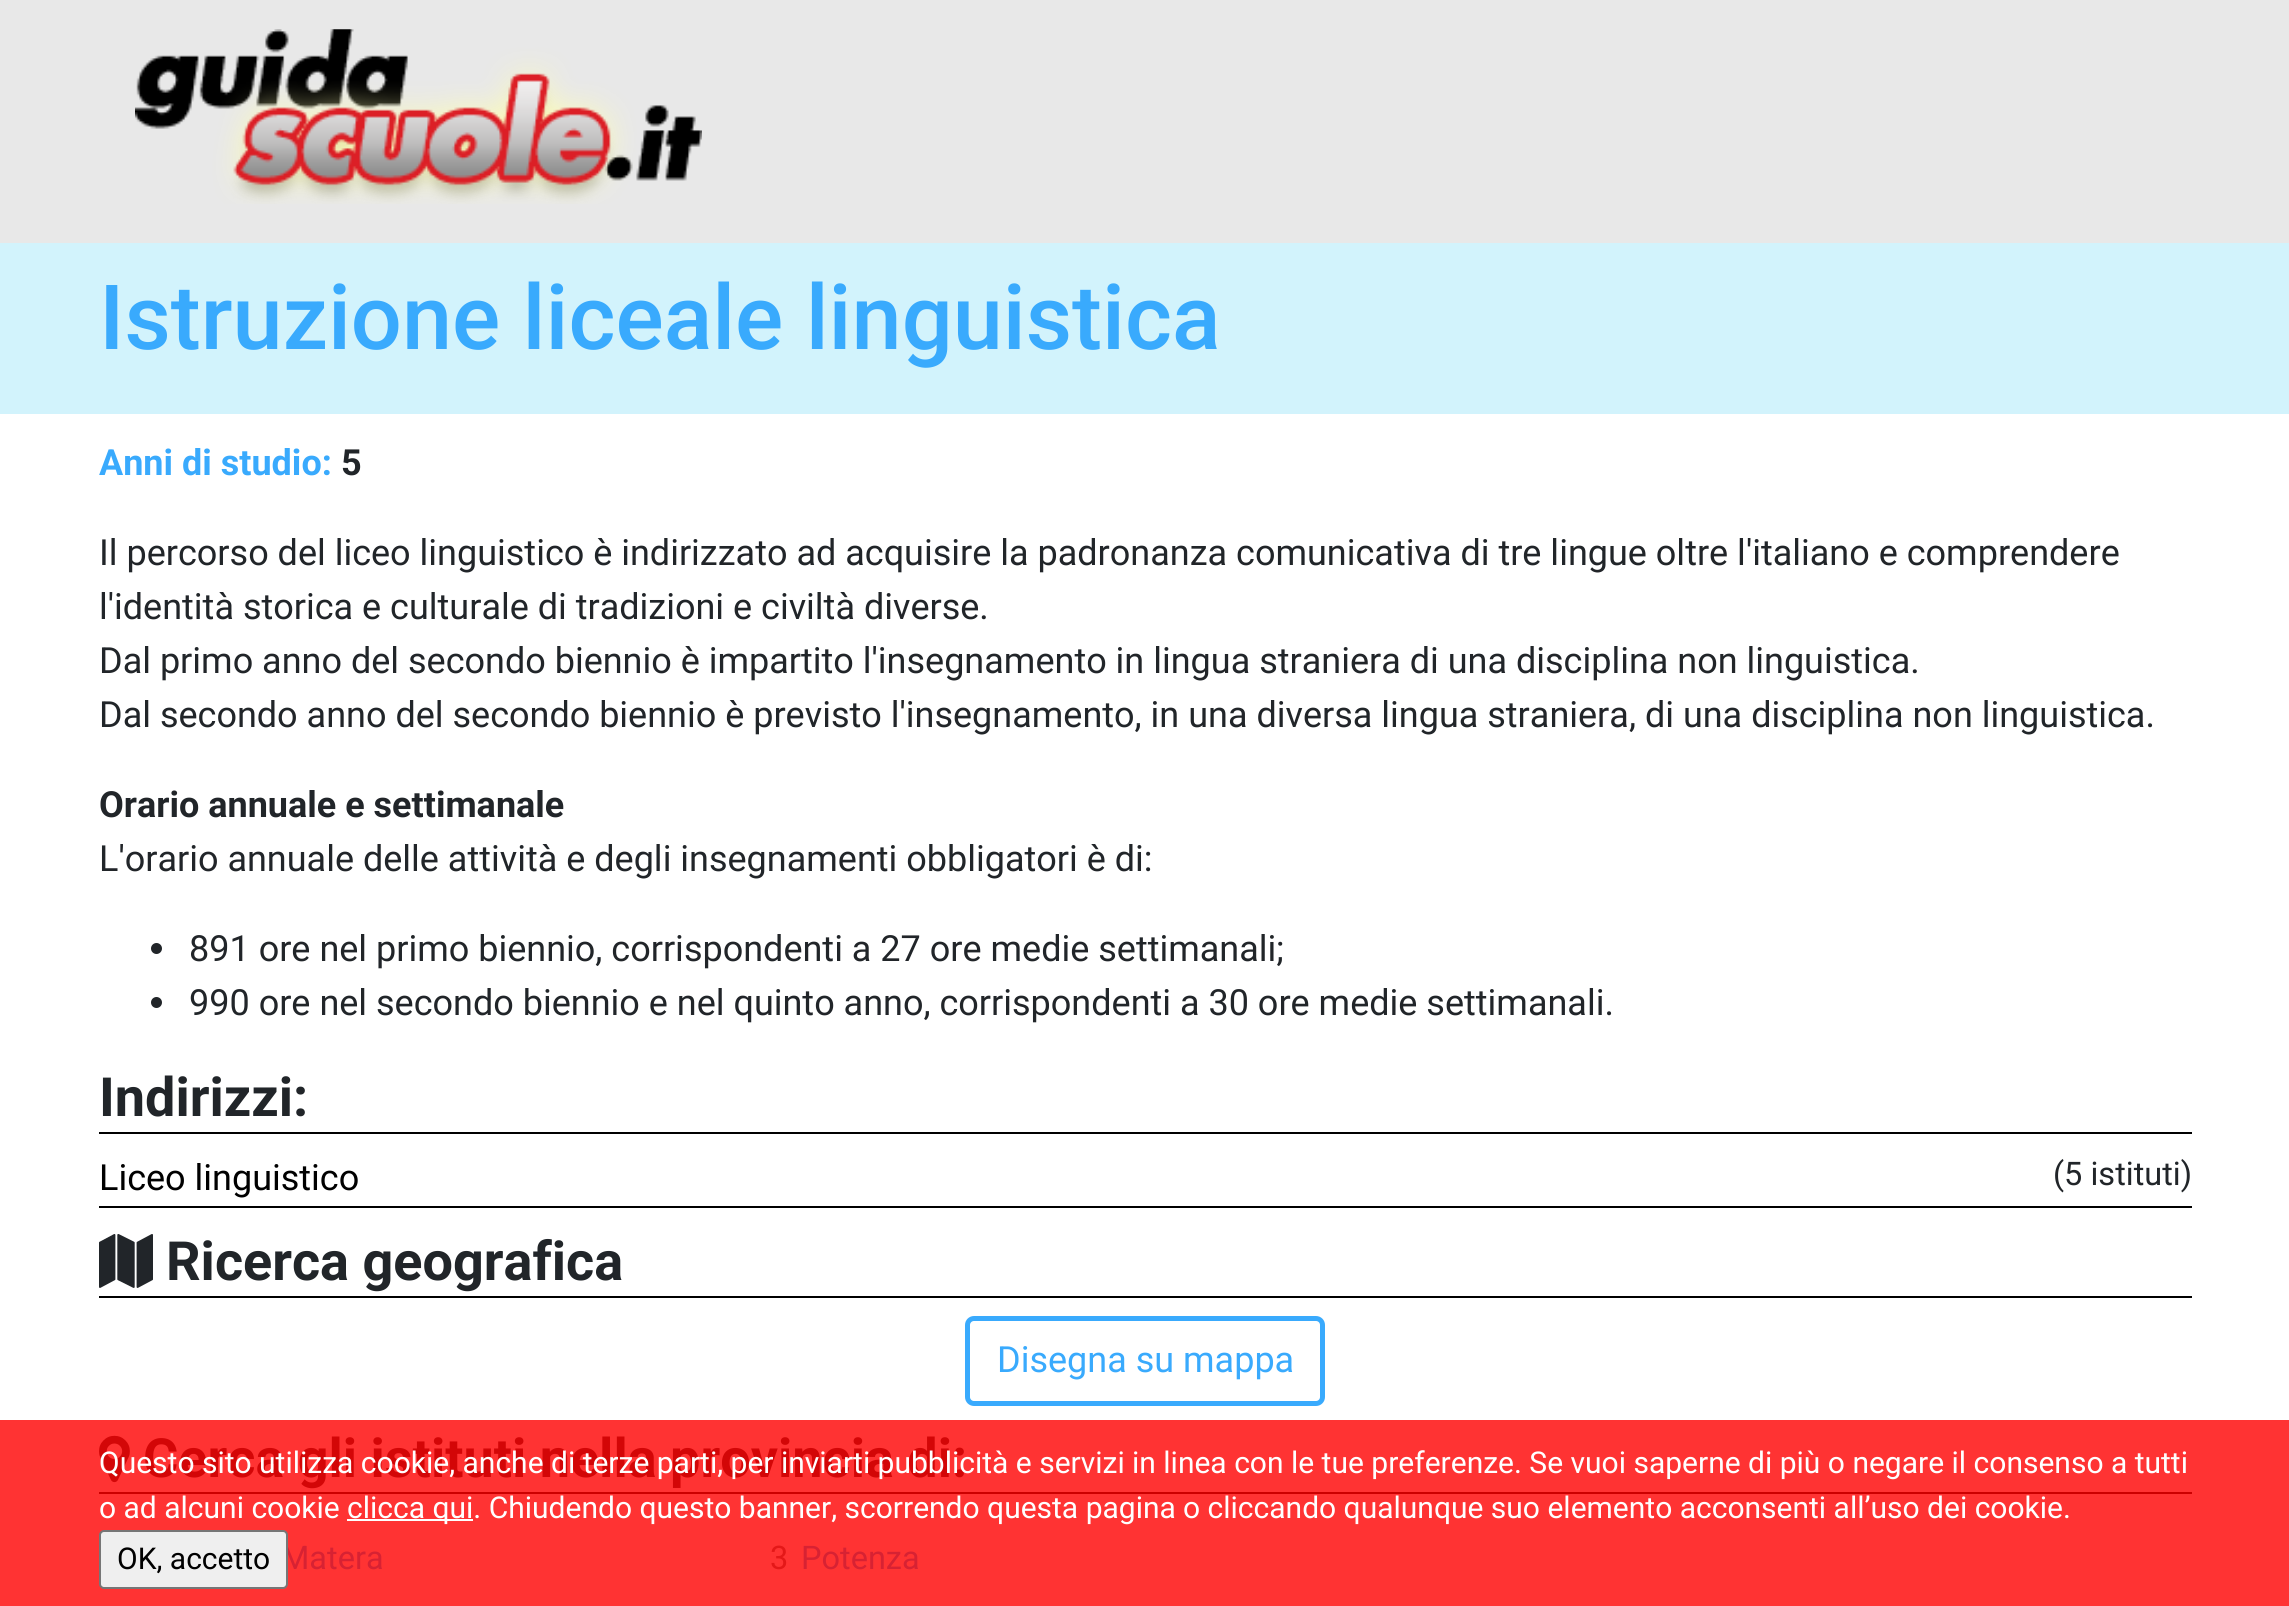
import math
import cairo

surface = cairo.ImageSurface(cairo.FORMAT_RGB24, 2289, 1606)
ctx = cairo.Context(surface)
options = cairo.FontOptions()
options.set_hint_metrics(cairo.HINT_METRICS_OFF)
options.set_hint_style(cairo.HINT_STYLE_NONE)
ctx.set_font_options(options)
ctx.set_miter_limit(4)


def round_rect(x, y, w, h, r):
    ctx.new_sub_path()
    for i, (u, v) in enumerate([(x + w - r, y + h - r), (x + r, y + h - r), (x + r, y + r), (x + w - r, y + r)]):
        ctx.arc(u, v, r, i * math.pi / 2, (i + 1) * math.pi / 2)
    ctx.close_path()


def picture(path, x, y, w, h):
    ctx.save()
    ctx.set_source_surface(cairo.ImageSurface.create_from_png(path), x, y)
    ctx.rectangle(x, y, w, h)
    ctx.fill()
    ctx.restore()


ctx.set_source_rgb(1, 1, 1)
ctx.paint()
ctx.set_source_rgb(1, 0.2, 0.2)
ctx.rectangle(0, 1420, 2289, 186)
ctx.fill()
ctx.set_source_rgb(0.91, 0.91, 0.91)
ctx.rectangle(0, 0, 2289, 243)
ctx.fill()
picture("img1.png", 135, 29, 567, 175)
ctx.set_source_rgb(0.824, 0.953, 0.988)
ctx.rectangle(0, 243, 2289, 171)
ctx.fill()
ctx.select_font_face("Roboto Medium")
ctx.set_font_size(90)
ctx.set_source_rgb(0.224, 0.667, 0.992)
ctx.move_to(99, 349)
ctx.show_text("Istruzione liceale linguistica")
ctx.select_font_face("Roboto", cairo.FONT_SLANT_NORMAL, cairo.FONT_WEIGHT_BOLD)
ctx.set_font_size(36)
ctx.move_to(99, 475)
ctx.show_text("Anni di studio:")
ctx.set_source_rgb(0.129, 0.145, 0.161)
ctx.move_to(341, 475)
ctx.show_text("5")
ctx.select_font_face("Roboto")
ctx.move_to(99, 565)
ctx.show_text("Il percorso del liceo linguistico è indirizzato ad acquisire la padronanza comunicativa di tre lingue oltre l'italiano e comprendere")
ctx.move_to(99, 619)
ctx.show_text("l'identità storica e culturale di tradizioni e civiltà diverse.")
ctx.move_to(99, 673)
ctx.show_text("Dal primo anno del secondo biennio è impartito l'insegnamento in lingua straniera di una disciplina non linguistica.")
ctx.move_to(99, 727)
ctx.show_text("Dal secondo anno del secondo biennio è previsto l'insegnamento, in una diversa lingua straniera, di una disciplina non linguistica.")
ctx.select_font_face("Roboto", cairo.FONT_SLANT_NORMAL, cairo.FONT_WEIGHT_BOLD)
ctx.move_to(99, 817)
ctx.show_text("Orario annuale e settimanale")
ctx.select_font_face("Roboto")
ctx.move_to(99, 871)
ctx.show_text("L'orario annuale delle attività e degli insegnamenti obbligatori è di:")
ctx.new_path()
ctx.arc(156.5, 948.5, 5.5, 0, 2 * math.pi)
ctx.fill()
ctx.move_to(189, 961)
ctx.show_text("891 ore nel primo biennio, corrispondenti a 27 ore medie settimanali;")
ctx.new_path()
ctx.arc(156.5, 1002.5, 5.5, 0, 2 * math.pi)
ctx.fill()
ctx.move_to(189, 1015)
ctx.show_text("990 ore nel secondo biennio e nel quinto anno, corrispondenti a 30 ore medie settimanali.")
ctx.set_source_rgb(0, 0, 0)
ctx.rectangle(99, 1132, 2093, 2)
ctx.fill()
ctx.select_font_face("Roboto", cairo.FONT_SLANT_NORMAL, cairo.FONT_WEIGHT_BOLD)
ctx.set_font_size(54)
ctx.set_source_rgb(0.129, 0.145, 0.161)
ctx.move_to(99, 1116)
ctx.show_text("Indirizzi:")
ctx.set_source_rgb(0, 0, 0)
ctx.rectangle(99, 1206, 2093, 2)
ctx.fill()
ctx.select_font_face("Roboto")
ctx.set_font_size(36)
ctx.move_to(99, 1190)
ctx.show_text("Liceo linguistico")
ctx.set_font_size(32.5)
ctx.set_source_rgb(0.129, 0.145, 0.161)
ctx.move_to(2053, 1185)
ctx.show_text("(5 istituti)")
ctx.set_source_rgb(0, 0, 0)
ctx.rectangle(99, 1296, 2093, 2)
ctx.fill()
picture("img2.png", 99, 1234, 54, 54)
ctx.select_font_face("Roboto", cairo.FONT_SLANT_NORMAL, cairo.FONT_WEIGHT_BOLD)
ctx.set_font_size(54)
ctx.set_source_rgb(0.129, 0.145, 0.161)
ctx.move_to(166, 1280)
ctx.show_text("Ricerca geografica")
round_rect(967.5, 1318.5, 355, 85, 6.5)
ctx.set_source_rgb(0.224, 0.667, 0.992)
ctx.set_line_width(5)
ctx.stroke()
ctx.select_font_face("Roboto")
ctx.set_font_size(36)
ctx.move_to(997, 1372)
ctx.show_text("Disegna su mappa")
ctx.set_source_rgb(0.8, 0, 0)
ctx.rectangle(99, 1492, 2093, 2)
ctx.fill()
picture("img3.png", 99, 1435, 31, 48)
ctx.select_font_face("Roboto", cairo.FONT_SLANT_NORMAL, cairo.FONT_WEIGHT_BOLD)
ctx.set_font_size(54)
ctx.set_source_rgb(0.827, 0.027, 0.031)
ctx.move_to(143, 1477)
ctx.show_text("Cerca gli istituti nella provincia di:")
ctx.select_font_face("Roboto")
ctx.set_font_size(32.5)
ctx.set_source_rgb(0.843, 0.133, 0.2)
ctx.move_to(281, 1569)
ctx.show_text("Matera")
ctx.set_source_rgb(0.894, 0.094, 0.094)
ctx.move_to(770, 1569)
ctx.show_text("3")
ctx.set_source_rgb(0.843, 0.133, 0.2)
ctx.move_to(801, 1569)
ctx.show_text("Potenza")
ctx.set_font_size(30)
ctx.set_source_rgb(1, 1, 1)
ctx.move_to(99, 1473)
ctx.show_text("Questo sito utilizza cookie, anche di terze parti, per inviarti pubblicità e servizi")
ctx.move_to(1132, 1473)
ctx.show_text("in linea con le tue preferenze. Se vuoi saperne di più o negare il consenso a tutti")
ctx.move_to(99, 1518)
ctx.show_text("o ad alcuni cookie")
ctx.rectangle(347, 1519, 126, 2)
ctx.fill()
ctx.move_to(347, 1518)
ctx.show_text("clicca qui. Chiudendo questo banner, scorrendo questa pagina")
ctx.move_to(1183, 1518)
ctx.show_text("o cliccando qualunque suo elemento acconsenti all’uso dei cookie.")
ctx.set_source_rgb(0.937, 0.937, 0.937)
round_rect(100, 1531, 187, 57, 4)
ctx.fill_preserve()
ctx.set_source_rgb(0.463, 0.463, 0.463)
ctx.set_line_width(2)
ctx.stroke()
ctx.set_source_rgb(0, 0, 0)
ctx.move_to(117, 1569)
ctx.show_text("OK, accetto")
surface.write_to_png("page.png")
